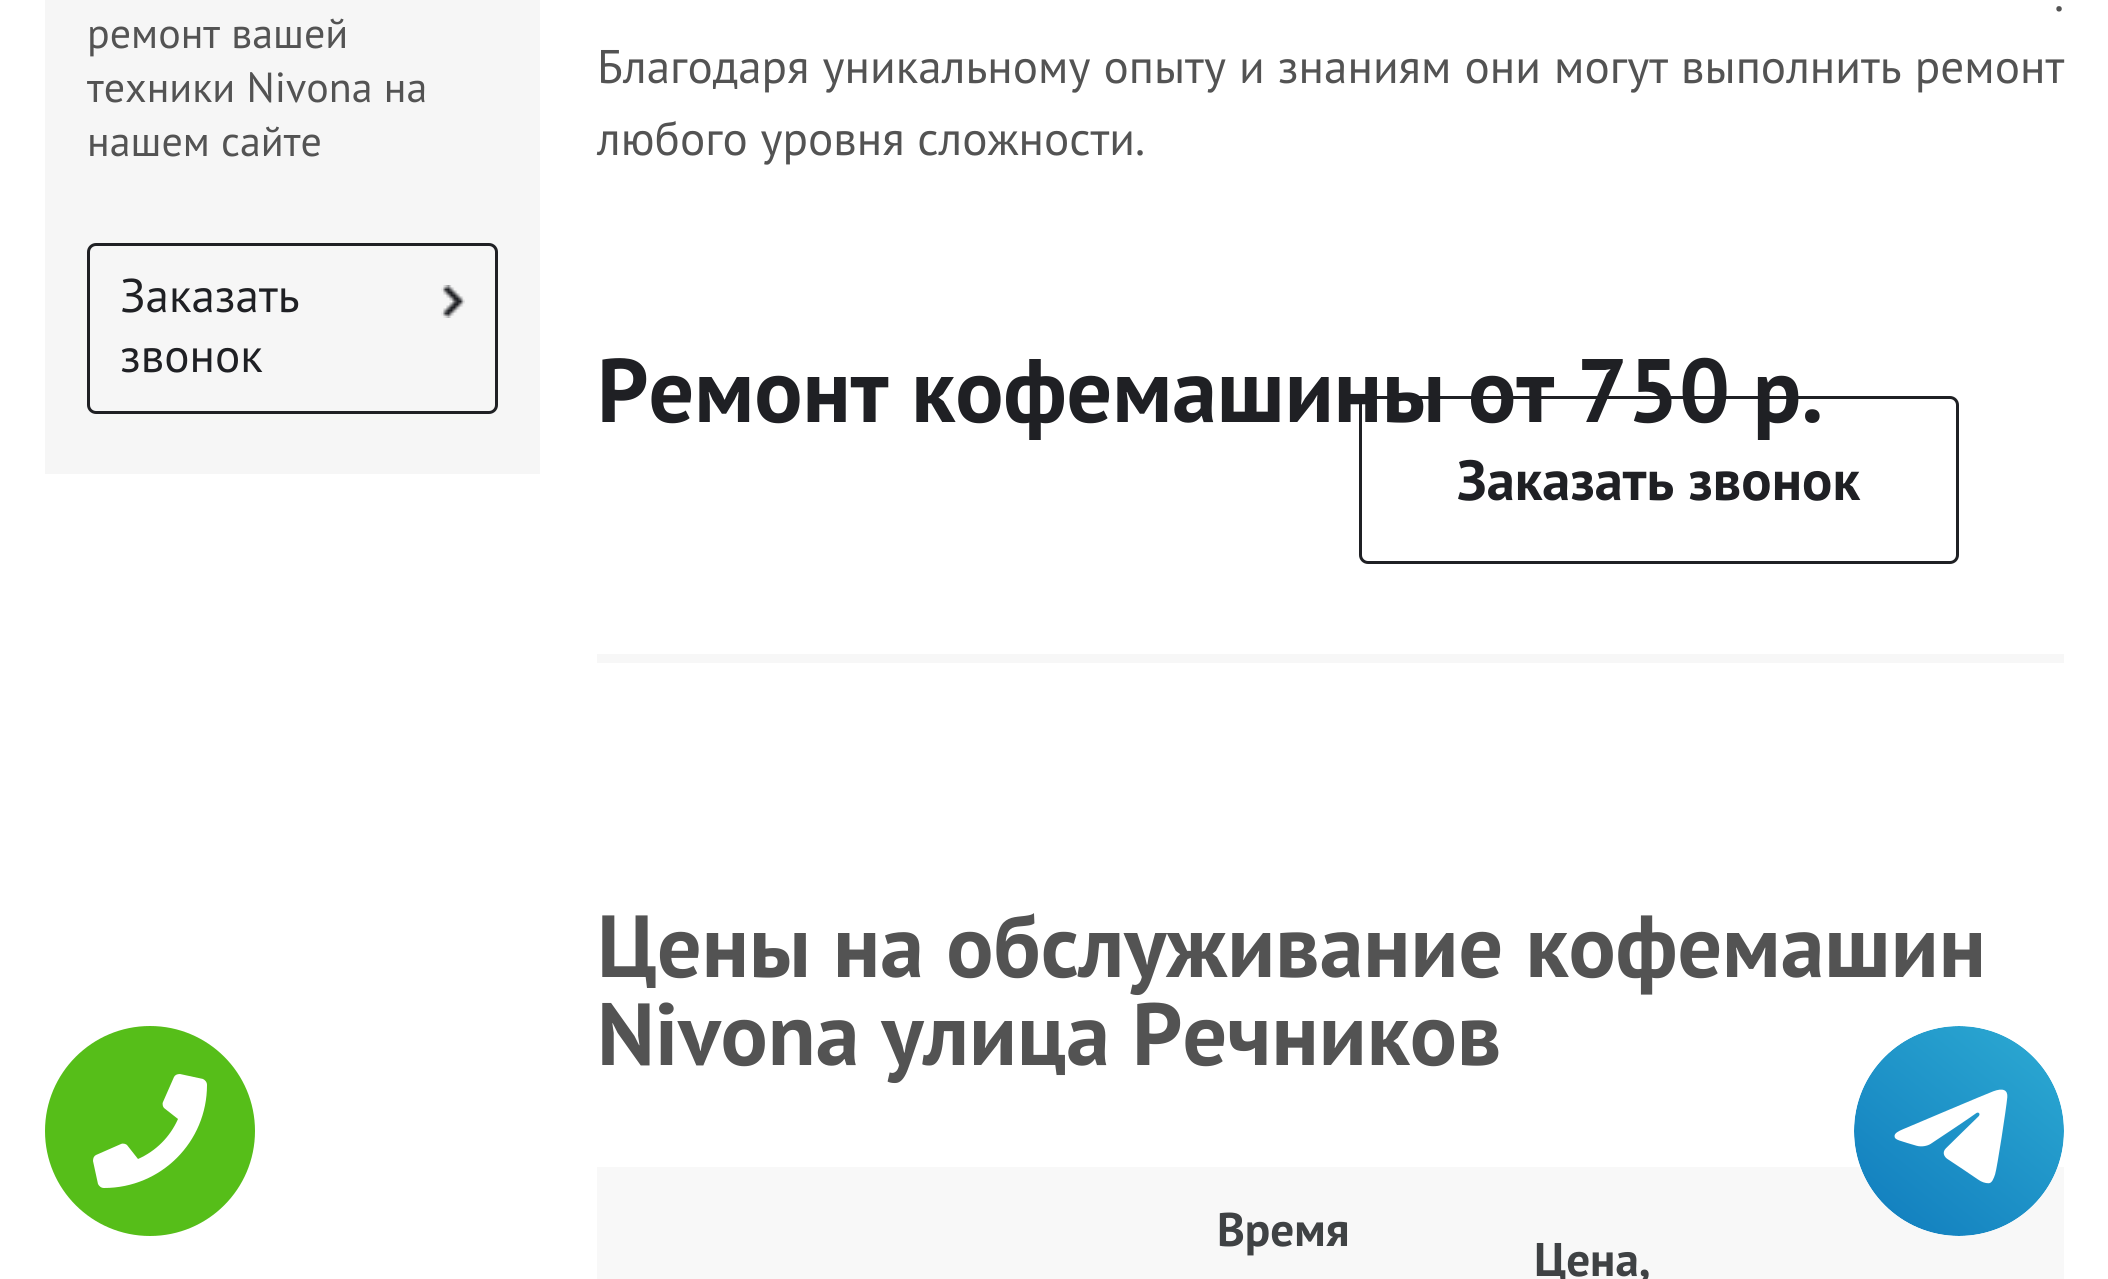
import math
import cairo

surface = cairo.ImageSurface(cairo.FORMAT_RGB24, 2108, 1279)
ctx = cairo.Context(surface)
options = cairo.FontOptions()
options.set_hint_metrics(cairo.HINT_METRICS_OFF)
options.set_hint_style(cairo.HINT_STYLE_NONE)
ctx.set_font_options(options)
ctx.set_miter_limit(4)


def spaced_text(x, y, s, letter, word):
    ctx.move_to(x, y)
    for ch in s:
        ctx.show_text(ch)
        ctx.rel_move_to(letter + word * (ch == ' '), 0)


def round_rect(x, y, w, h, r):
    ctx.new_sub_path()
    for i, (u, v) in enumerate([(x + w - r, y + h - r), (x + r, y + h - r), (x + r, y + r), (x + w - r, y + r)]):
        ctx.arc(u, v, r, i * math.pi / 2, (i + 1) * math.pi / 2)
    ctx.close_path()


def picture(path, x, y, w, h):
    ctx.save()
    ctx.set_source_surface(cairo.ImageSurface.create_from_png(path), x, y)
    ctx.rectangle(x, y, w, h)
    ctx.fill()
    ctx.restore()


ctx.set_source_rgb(1, 1, 1)
ctx.paint()
ctx.set_source_rgb(0.961, 0.961, 0.961)
ctx.rectangle(45, 0, 495, 474)
ctx.fill()
ctx.select_font_face("PT Sans")
ctx.set_font_size(42)
ctx.set_source_rgb(0.325, 0.325, 0.325)
ctx.move_to(87, 48)
ctx.show_text("ремонт вашей")
ctx.move_to(87, 102)
ctx.show_text("техники Nivona на")
ctx.move_to(87, 156)
ctx.show_text("нашем сайте")
round_rect(88.5, 244.5, 408, 168, 7.5)
ctx.set_source_rgb(0.122, 0.125, 0.141)
ctx.set_line_width(3)
ctx.stroke()
ctx.set_font_size(47.15)
ctx.move_to(120, 312)
ctx.show_text("Заказать")
picture("img1.png", 441, 285, 24, 33)
ctx.move_to(120, 372)
ctx.show_text("звонок")
ctx.set_source_rgb(0.325, 0.325, 0.325)
spaced_text(2054, 11, ".", 0, 1)
spaced_text(597, 83, "Благодаря уникальному опыту и знаниям они могут выполнить ремонт", 0, 0.5)
ctx.move_to(597, 155)
ctx.show_text("любого уровня сложности.")
ctx.select_font_face("PT Sans", cairo.FONT_SLANT_NORMAL, cairo.FONT_WEIGHT_BOLD)
ctx.set_font_size(90)
ctx.set_source_rgb(0.122, 0.125, 0.141)
ctx.move_to(597, 422)
ctx.show_text("Ремонт кофемашины от 750 р.")
round_rect(1360.5, 397.5, 597, 165, 7.5)
ctx.stroke()
ctx.set_font_size(56.5)
ctx.move_to(1457, 500)
ctx.show_text("Заказать звонок")
ctx.set_source_rgb(0.965, 0.965, 0.965)
ctx.rectangle(597, 654, 1467, 9)
ctx.fill()
ctx.set_font_size(88)
ctx.set_source_rgb(0.325, 0.325, 0.325)
ctx.move_to(597, 977)
ctx.show_text("Цены на обслуживание кофемашин")
ctx.move_to(597, 1065)
ctx.show_text("Nivona улица Речников")
ctx.set_source_rgb(0.969, 0.969, 0.969)
ctx.rectangle(597, 1167, 1467, 112)
ctx.fill()
ctx.set_font_size(47.15)
ctx.set_source_rgb(0.247, 0.259, 0.267)
ctx.move_to(1217, 1246)
ctx.show_text("Время")
ctx.move_to(1534, 1276)
ctx.show_text("Цена,")
ctx.set_source_rgb(0.337, 0.745, 0.098)
ctx.new_path()
ctx.arc(150, 1131, 105, 0, 2 * math.pi)
ctx.fill()
ctx.set_source_rgb(1, 1, 1)
ctx.new_path()
ctx.move_to(203, 1079)
ctx.line_to(180, 1074)
ctx.curve_to(177, 1074, 175, 1075, 174, 1077)
ctx.line_to(163, 1102)
ctx.curve_to(162, 1104, 163, 1107, 164, 1108)
ctx.line_to(178, 1119)
ctx.curve_to(170, 1137, 156, 1151, 138, 1159)
ctx.line_to(127, 1145)
ctx.curve_to(126, 1144, 123, 1143, 121, 1144)
ctx.line_to(96, 1155)
ctx.curve_to(94, 1156, 93, 1158, 93, 1161)
ctx.line_to(98, 1184)
ctx.curve_to(99, 1186, 101, 1188, 104, 1188)
ctx.curve_to(161, 1188, 207, 1142, 207, 1085)
ctx.curve_to(207, 1082, 205, 1080, 203, 1079)
ctx.close_path()
ctx.fill()
ctx.arc(1959, 1131, 105, 0, 2 * math.pi)
ctx.fill()
picture("img2.png", 1854, 1026, 210, 210)
surface.write_to_png("page.png")
